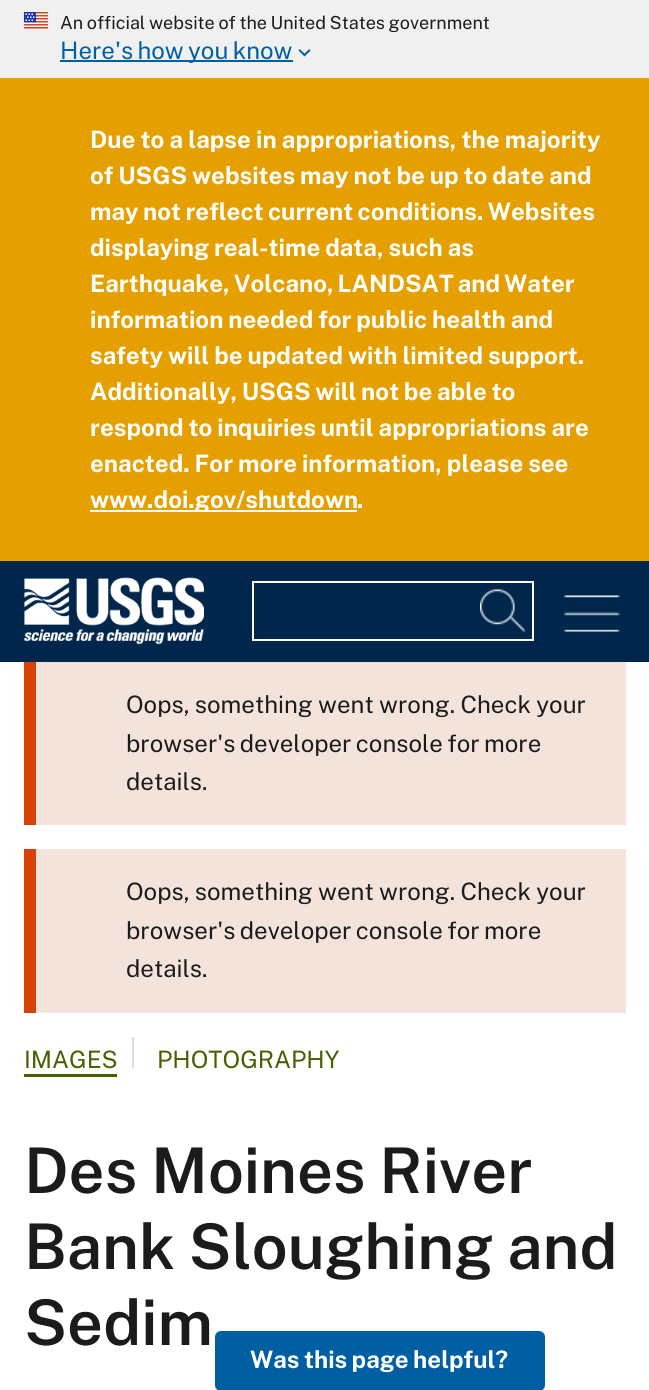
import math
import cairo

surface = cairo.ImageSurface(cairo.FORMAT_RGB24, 649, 1390)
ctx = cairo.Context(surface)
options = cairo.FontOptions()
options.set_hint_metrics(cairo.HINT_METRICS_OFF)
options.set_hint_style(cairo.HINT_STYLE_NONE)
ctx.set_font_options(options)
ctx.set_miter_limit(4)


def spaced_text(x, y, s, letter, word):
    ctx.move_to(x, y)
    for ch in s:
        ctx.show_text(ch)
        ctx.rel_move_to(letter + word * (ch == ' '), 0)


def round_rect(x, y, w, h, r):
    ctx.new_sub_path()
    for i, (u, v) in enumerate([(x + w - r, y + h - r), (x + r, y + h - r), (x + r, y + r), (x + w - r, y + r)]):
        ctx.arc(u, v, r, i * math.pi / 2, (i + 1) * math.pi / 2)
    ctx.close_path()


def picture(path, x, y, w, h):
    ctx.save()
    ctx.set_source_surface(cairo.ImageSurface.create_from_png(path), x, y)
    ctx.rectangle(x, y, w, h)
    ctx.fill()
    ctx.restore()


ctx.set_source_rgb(1, 1, 1)
ctx.paint()
ctx.set_source_rgb(0.941, 0.941, 0.941)
ctx.rectangle(0, 0, 649, 78)
ctx.fill()
picture("img1.png", 24, 12, 24, 17)
ctx.select_font_face("Public Sans")
ctx.set_font_size(18)
ctx.set_source_rgb(0.106, 0.106, 0.106)
spaced_text(60, 29, "An official website of the United States government", 0, -0.75)
ctx.set_source_rgb(0, 0.369, 0.635)
ctx.rectangle(60, 60, 233, 2)
ctx.fill()
ctx.set_font_size(24)
spaced_text(60, 59, "Here's how you know", 0, -1.5)
picture("img2.png", 298, 49, 13, 8)
ctx.set_source_rgb(0, 0.149, 0.298)
ctx.rectangle(0, 561, 649, 101)
ctx.fill()
ctx.set_source_rgb(0.898, 0.627, 0)
ctx.rectangle(0, 78, 649, 483)
ctx.fill()
ctx.select_font_face("Public Sans", cairo.FONT_SLANT_NORMAL, cairo.FONT_WEIGHT_BOLD)
ctx.set_source_rgb(1, 1, 1)
spaced_text(90, 148, "Due to a lapse in appropriations, the majority", 0, -0.25)
spaced_text(90, 184, "of USGS websites may not be up to date and", 0, -0.5)
spaced_text(90, 220, "may not reflect current conditions. Websites", 0, -1)
spaced_text(90, 256, "displaying real-time data, such as", 0, -0.5)
spaced_text(90, 292, "Earthquake, Volcano, LANDSAT and Water", 0, -1.5)
spaced_text(90, 328, "information needed for public health and", 0, -0.5)
spaced_text(90, 364, "safety will be updated with limited support.", 0, -0.5)
spaced_text(90, 400, "Additionally, USGS will not be able to", 0, -0.75)
spaced_text(90, 436, "respond to inquiries until appropriations are", 0, -0.5)
spaced_text(90, 472, "enacted. For more information, please see", 0, -0.5)
ctx.rectangle(90, 510, 267, 2)
ctx.fill()
ctx.move_to(90, 508)
ctx.show_text("www.doi.gov/shutdown")
ctx.move_to(357, 508)
ctx.show_text(".")
picture("img3.png", 24, 577, 180, 68)
ctx.rectangle(253, 582, 280, 58)
ctx.stroke()
picture("img4.png", 480, 589, 45, 43)
picture("img5.png", 563, 595, 57, 37)
ctx.set_source_rgb(0.957, 0.89, 0.859)
ctx.rectangle(36, 662, 590, 163)
ctx.fill()
ctx.set_source_rgb(0.835, 0.263, 0.035)
ctx.rectangle(24, 662, 12, 163)
ctx.fill()
ctx.select_font_face("Public Sans")
ctx.set_source_rgb(0.106, 0.106, 0.106)
spaced_text(126, 713, "Oops, something went wrong. Check your", 0, -0.5)
spaced_text(126, 752, "browser's developer console for more", 0, -1.5)
ctx.move_to(126, 790)
ctx.show_text("details.")
ctx.set_source_rgb(0.957, 0.89, 0.859)
ctx.rectangle(36, 849, 590, 164)
ctx.fill()
ctx.set_source_rgb(0.835, 0.263, 0.035)
ctx.rectangle(24, 849, 12, 164)
ctx.fill()
ctx.set_source_rgb(0.106, 0.106, 0.106)
spaced_text(126, 900, "Oops, something went wrong. Check your", 0, -0.5)
spaced_text(126, 939, "browser's developer console for more", 0, -1.5)
ctx.move_to(126, 977)
ctx.show_text("details.")
ctx.set_source_rgb(0.267, 0.38, 0)
ctx.move_to(24, 1068)
ctx.show_text("IMAGES")
ctx.rectangle(24, 1074, 93, 3)
ctx.fill()
ctx.set_source_rgb(0.867, 0.867, 0.867)
ctx.rectangle(132, 1037, 2, 31)
ctx.fill()
ctx.set_source_rgb(0.267, 0.38, 0)
ctx.move_to(157, 1068)
ctx.show_text("PHOTOGRAPHY")
ctx.select_font_face("Public Sans SemiBold")
ctx.set_font_size(63)
ctx.set_source_rgb(0.106, 0.106, 0.106)
spaced_text(24, 1193, "Des Moines River", 0, -1)
spaced_text(24, 1269, "Bank Sloughing and", 0, -1)
ctx.move_to(24, 1345)
ctx.show_text("Sedim")
ctx.set_source_rgb(0, 0.369, 0.635)
round_rect(215, 1331, 330, 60, 6)
ctx.fill()
ctx.select_font_face("Public Sans", cairo.FONT_SLANT_NORMAL, cairo.FONT_WEIGHT_BOLD)
ctx.set_font_size(24)
ctx.set_source_rgb(1, 1, 1)
spaced_text(250, 1368, "Was this page helpful?", 0, -1)
surface.write_to_png("page.png")
